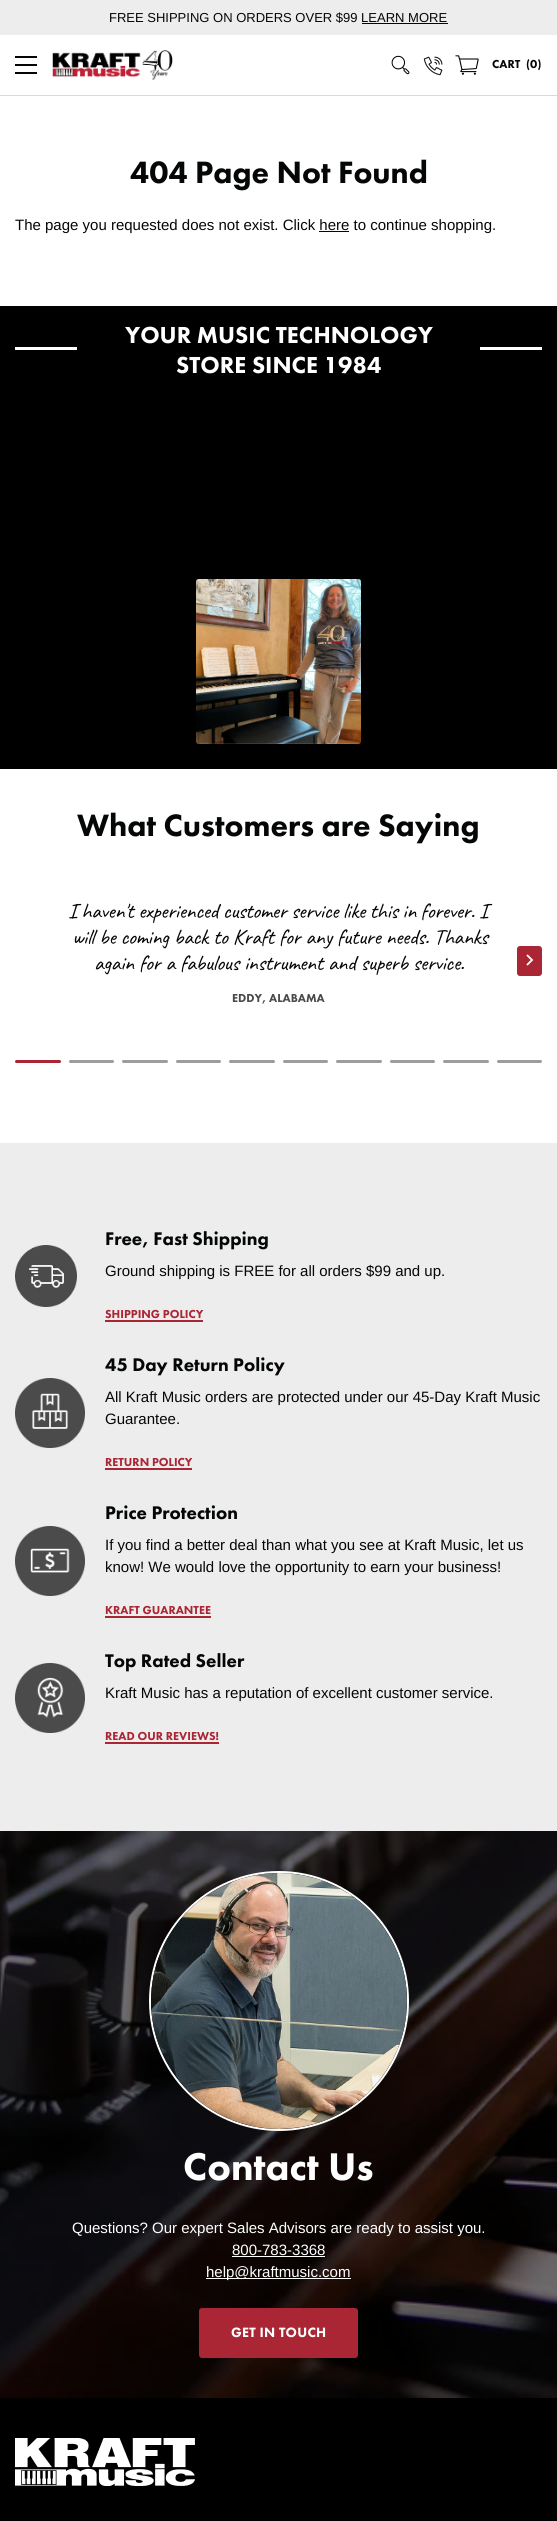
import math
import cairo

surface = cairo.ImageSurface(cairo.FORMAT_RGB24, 557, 2521)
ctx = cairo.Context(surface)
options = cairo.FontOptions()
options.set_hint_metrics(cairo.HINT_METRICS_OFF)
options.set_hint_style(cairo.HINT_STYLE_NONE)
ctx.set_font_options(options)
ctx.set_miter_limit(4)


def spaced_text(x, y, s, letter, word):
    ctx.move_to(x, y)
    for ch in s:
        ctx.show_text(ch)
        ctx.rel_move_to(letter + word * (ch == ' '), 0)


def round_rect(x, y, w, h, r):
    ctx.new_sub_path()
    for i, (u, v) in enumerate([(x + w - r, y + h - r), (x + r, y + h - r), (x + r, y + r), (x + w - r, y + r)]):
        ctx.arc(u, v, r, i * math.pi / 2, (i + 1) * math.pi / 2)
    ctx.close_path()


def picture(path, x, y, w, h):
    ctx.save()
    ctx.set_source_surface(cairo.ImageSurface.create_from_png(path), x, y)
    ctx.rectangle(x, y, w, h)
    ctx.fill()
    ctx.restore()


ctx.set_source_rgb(1, 1, 1)
ctx.paint()
ctx.set_source_rgb(0.851, 0.851, 0.851)
ctx.rectangle(0, 95, 557, 1)
ctx.fill()
ctx.set_source_rgb(0.929, 0.929, 0.929)
ctx.rectangle(0, 0, 557, 35)
ctx.fill()
ctx.select_font_face("Arimo")
ctx.set_font_size(13)
ctx.set_source_rgb(0.016, 0.031, 0.027)
ctx.move_to(109, 22)
ctx.show_text("FREE SHIPPING ON ORDERS OVER $99 LEARN MORE")
ctx.rectangle(362, 23, 86, 1)
ctx.fill()
ctx.rectangle(15, 64, 22, 2)
ctx.fill()
ctx.rectangle(15, 56, 22, 2)
ctx.fill()
ctx.rectangle(15, 72, 22, 2)
ctx.fill()
picture("img1.png", 52, 50, 121, 30)
picture("img2.png", 391, 55, 19, 20)
picture("img3.png", 423, 56, 20, 20)
picture("img4.png", 455, 55, 24, 20)
ctx.select_font_face("Futura PT")
ctx.set_font_size(12)
ctx.move_to(492, 68)
ctx.show_text("CART")
ctx.move_to(526, 68)
ctx.show_text("(0)")
ctx.set_font_size(32)
ctx.move_to(130, 183)
ctx.show_text("404 Page Not Found")
ctx.select_font_face("Arimo")
ctx.set_font_size(15)
ctx.move_to(15, 230)
ctx.show_text("The page you requested does not exist. Click here to continue shopping.")
ctx.rectangle(319, 231, 30, 1)
ctx.fill()
ctx.set_source_rgb(0, 0, 0)
ctx.rectangle(0, 306, 557, 463)
ctx.fill()
ctx.set_source_rgb(1, 1, 1)
ctx.rectangle(15, 347, 527, 3)
ctx.fill()
ctx.set_source_rgb(0, 0, 0)
ctx.rectangle(77, 347, 403, 3)
ctx.fill()
ctx.select_font_face("Futura PT")
ctx.set_font_size(24)
ctx.set_source_rgb(1, 1, 1)
ctx.move_to(125, 343)
ctx.show_text("YOUR MUSIC TECHNOLOGY")
ctx.move_to(176, 373)
ctx.show_text("STORE SINCE 1984")
picture("img5.png", 196, 579, 165, 165)
ctx.set_font_size(32)
ctx.set_source_rgb(0.016, 0.031, 0.027)
ctx.move_to(77, 836)
ctx.show_text("What Customers are Saying")
ctx.select_font_face("Caveat")
ctx.set_font_size(22)
spaced_text(68, 918, "I haven't experienced customer service like this in forever. I", -0.28, -0.25)
spaced_text(72, 944, "will be coming back to Kraft for any future needs. Thanks", -0.28, 0.25)
spaced_text(94, 970, "again for a fabulous instrument and superb service.", -0.28, 0.25)
ctx.select_font_face("Futura PT")
ctx.set_font_size(12)
ctx.set_source_rgb(0.29, 0.29, 0.29)
ctx.move_to(232, 1002)
ctx.show_text("EDDY, ALABAMA")
ctx.set_source_rgb(0.667, 0.149, 0.204)
round_rect(517, 946, 25, 30, 3)
ctx.fill()
ctx.new_path()
ctx.move_to(527, 965)
ctx.line_to(532, 960)
ctx.line_to(527, 955)
ctx.set_source_rgb(1, 1, 1)
ctx.set_line_width(1.8)
ctx.stroke()
ctx.set_source_rgb(0.667, 0.149, 0.204)
round_rect(15, 1060, 46, 3, 1.5)
ctx.fill()
ctx.set_source_rgb(0.616, 0.616, 0.616)
round_rect(69, 1060, 45, 3, 1.5)
ctx.fill()
round_rect(122, 1060, 46, 3, 1.5)
ctx.fill()
round_rect(176, 1060, 45, 3, 1.5)
ctx.fill()
round_rect(229, 1060, 46, 3, 1.5)
ctx.fill()
round_rect(283, 1060, 45, 3, 1.5)
ctx.fill()
round_rect(336, 1060, 46, 3, 1.5)
ctx.fill()
round_rect(390, 1060, 45, 3, 1.5)
ctx.fill()
round_rect(443, 1060, 46, 3, 1.5)
ctx.fill()
round_rect(497, 1060, 45, 3, 1.5)
ctx.fill()
ctx.set_source_rgb(0.929, 0.929, 0.929)
ctx.rectangle(0, 1143, 557, 688)
ctx.fill()
picture("img6.png", 15, 1245, 62, 62)
ctx.set_font_size(19)
ctx.set_source_rgb(0.016, 0.031, 0.027)
ctx.move_to(105, 1245)
ctx.show_text("Free, Fast Shipping")
ctx.select_font_face("Arimo")
ctx.set_font_size(15)
ctx.move_to(105, 1276)
ctx.show_text("Ground shipping is FREE for all orders $99 and up.")
ctx.select_font_face("Futura PT")
ctx.set_font_size(12)
ctx.set_source_rgb(0.667, 0.149, 0.204)
ctx.move_to(105, 1318)
ctx.show_text("SHIPPING POLICY")
ctx.rectangle(105, 1320, 98, 2)
ctx.fill()
picture("img7.png", 15, 1378, 70, 70)
ctx.set_font_size(19)
ctx.set_source_rgb(0.016, 0.031, 0.027)
ctx.move_to(105, 1371)
ctx.show_text("45 Day Return Policy")
ctx.select_font_face("Arimo")
ctx.set_font_size(15)
ctx.move_to(105, 1402)
ctx.show_text("All Kraft Music orders are protected under our 45-Day Kraft Music")
ctx.move_to(105, 1424)
ctx.show_text("Guarantee.")
ctx.select_font_face("Futura PT")
ctx.set_font_size(12)
ctx.set_source_rgb(0.667, 0.149, 0.204)
ctx.move_to(105, 1466)
ctx.show_text("RETURN POLICY")
ctx.rectangle(105, 1468, 87, 2)
ctx.fill()
picture("img8.png", 15, 1526, 70, 70)
ctx.set_font_size(19)
ctx.set_source_rgb(0.016, 0.031, 0.027)
ctx.move_to(105, 1519)
ctx.show_text("Price Protection")
ctx.select_font_face("Arimo")
ctx.set_font_size(15)
ctx.move_to(105, 1550)
ctx.show_text("If you find a better deal than what you see at Kraft Music, let us")
ctx.move_to(105, 1572)
ctx.show_text("know! We would love the opportunity to earn your business!")
ctx.select_font_face("Futura PT")
ctx.set_font_size(12)
ctx.set_source_rgb(0.667, 0.149, 0.204)
ctx.move_to(105, 1614)
ctx.show_text("KRAFT GUARANTEE")
ctx.rectangle(105, 1616, 106, 2)
ctx.fill()
picture("img9.png", 15, 1663, 70, 70)
ctx.set_font_size(19)
ctx.set_source_rgb(0.016, 0.031, 0.027)
ctx.move_to(105, 1667)
ctx.show_text("Top Rated Seller")
ctx.select_font_face("Arimo")
ctx.set_font_size(15)
ctx.move_to(105, 1698)
ctx.show_text("Kraft Music has a reputation of excellent customer service.")
ctx.select_font_face("Futura PT")
ctx.set_font_size(12)
ctx.set_source_rgb(0.667, 0.149, 0.204)
ctx.move_to(105, 1740)
ctx.show_text("READ OUR REVIEWS!")
ctx.rectangle(105, 1742, 114, 2)
ctx.fill()
picture("img10.png", 0, 1831, 557, 567)
ctx.arc(279, 2001, 129, 0, 2 * math.pi)
ctx.set_source_rgb(1, 1, 1)
ctx.set_line_width(2)
ctx.stroke()
picture("img11.png", 151, 1873, 256, 256)
ctx.set_font_size(40)
ctx.move_to(183, 2180)
ctx.show_text("Contact Us")
ctx.select_font_face("Arimo")
ctx.set_font_size(15)
ctx.move_to(72, 2233)
ctx.show_text("Questions? Our expert Sales Advisors are ready to assist you.")
ctx.move_to(232, 2255)
ctx.show_text("800-783-3368")
ctx.rectangle(232, 2256, 93, 1)
ctx.fill()
ctx.rectangle(206, 2278, 145, 1)
ctx.fill()
ctx.move_to(206, 2277)
ctx.show_text("help@kraftmusic.com")
ctx.set_source_rgb(0.667, 0.149, 0.204)
round_rect(199, 2308, 159, 50, 3)
ctx.fill()
ctx.select_font_face("Futura PT")
ctx.set_font_size(14)
ctx.set_source_rgb(1, 1, 1)
spaced_text(231, 2337, "GET IN TOUCH", 0.25, 0)
ctx.set_source_rgb(0, 0, 0)
ctx.rectangle(0, 2398, 557, 123)
ctx.fill()
picture("img12.png", 15, 2438, 180, 48)
surface.write_to_png("page.png")
